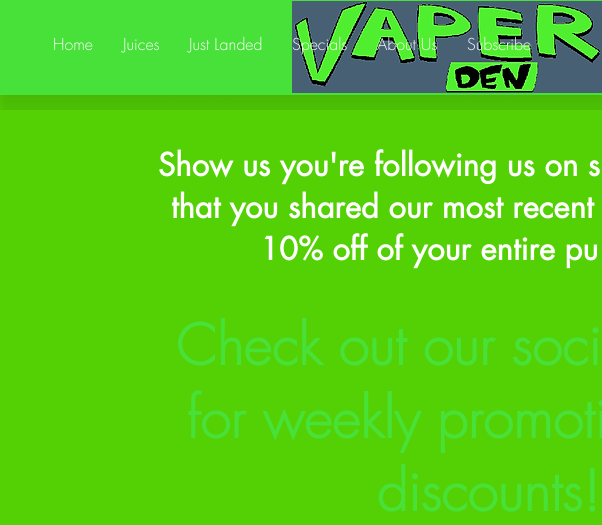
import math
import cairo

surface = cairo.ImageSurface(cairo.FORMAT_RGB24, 602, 525)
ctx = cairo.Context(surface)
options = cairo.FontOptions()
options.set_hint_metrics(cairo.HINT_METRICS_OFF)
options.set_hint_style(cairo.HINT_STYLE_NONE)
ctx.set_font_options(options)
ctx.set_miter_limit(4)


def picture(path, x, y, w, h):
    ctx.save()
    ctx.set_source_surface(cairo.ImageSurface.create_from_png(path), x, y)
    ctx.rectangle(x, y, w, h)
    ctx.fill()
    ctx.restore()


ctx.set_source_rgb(0.325, 0.82, 0.016)
ctx.paint()
ctx.set_source_rgb(0.282, 0.882, 0.227)
ctx.rectangle(0, 0, 602, 95)
ctx.fill()
picture("img1.png", 292, 1, 310, 92)
picture("img2.png", 0, 95, 35, 15)
picture("img3.png", 35, 95, 567, 15)
ctx.select_font_face("futura Light")
ctx.set_font_size(16)
ctx.set_source_rgb(1, 1, 1)
ctx.move_to(53, 50)
ctx.show_text("Home")
ctx.move_to(123, 50)
ctx.show_text("Juices")
ctx.move_to(189, 50)
ctx.show_text("Just Landed")
ctx.move_to(292, 50)
ctx.show_text("Specials")
ctx.move_to(377, 50)
ctx.show_text("About Us")
ctx.move_to(467, 50)
ctx.show_text("Subscribe")
ctx.select_font_face("futura", cairo.FONT_SLANT_NORMAL, cairo.FONT_WEIGHT_BOLD)
ctx.set_font_size(31)
ctx.move_to(158, 176)
ctx.show_text("Show us you're following us on s")
ctx.move_to(171, 218)
ctx.show_text("that you shared our most recent")
ctx.move_to(260, 260)
ctx.show_text("10% off of your entire pu")
ctx.select_font_face("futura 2", cairo.FONT_SLANT_NORMAL, cairo.FONT_WEIGHT_BOLD)
ctx.set_font_size(55)
ctx.set_source_rgb(0.282, 0.882, 0.227)
ctx.move_to(176, 365)
ctx.show_text("Check out our soci")
ctx.move_to(187, 438)
ctx.show_text("for weekly promoti")
ctx.move_to(377, 511)
ctx.show_text("discounts!")
surface.write_to_png("page.png")
